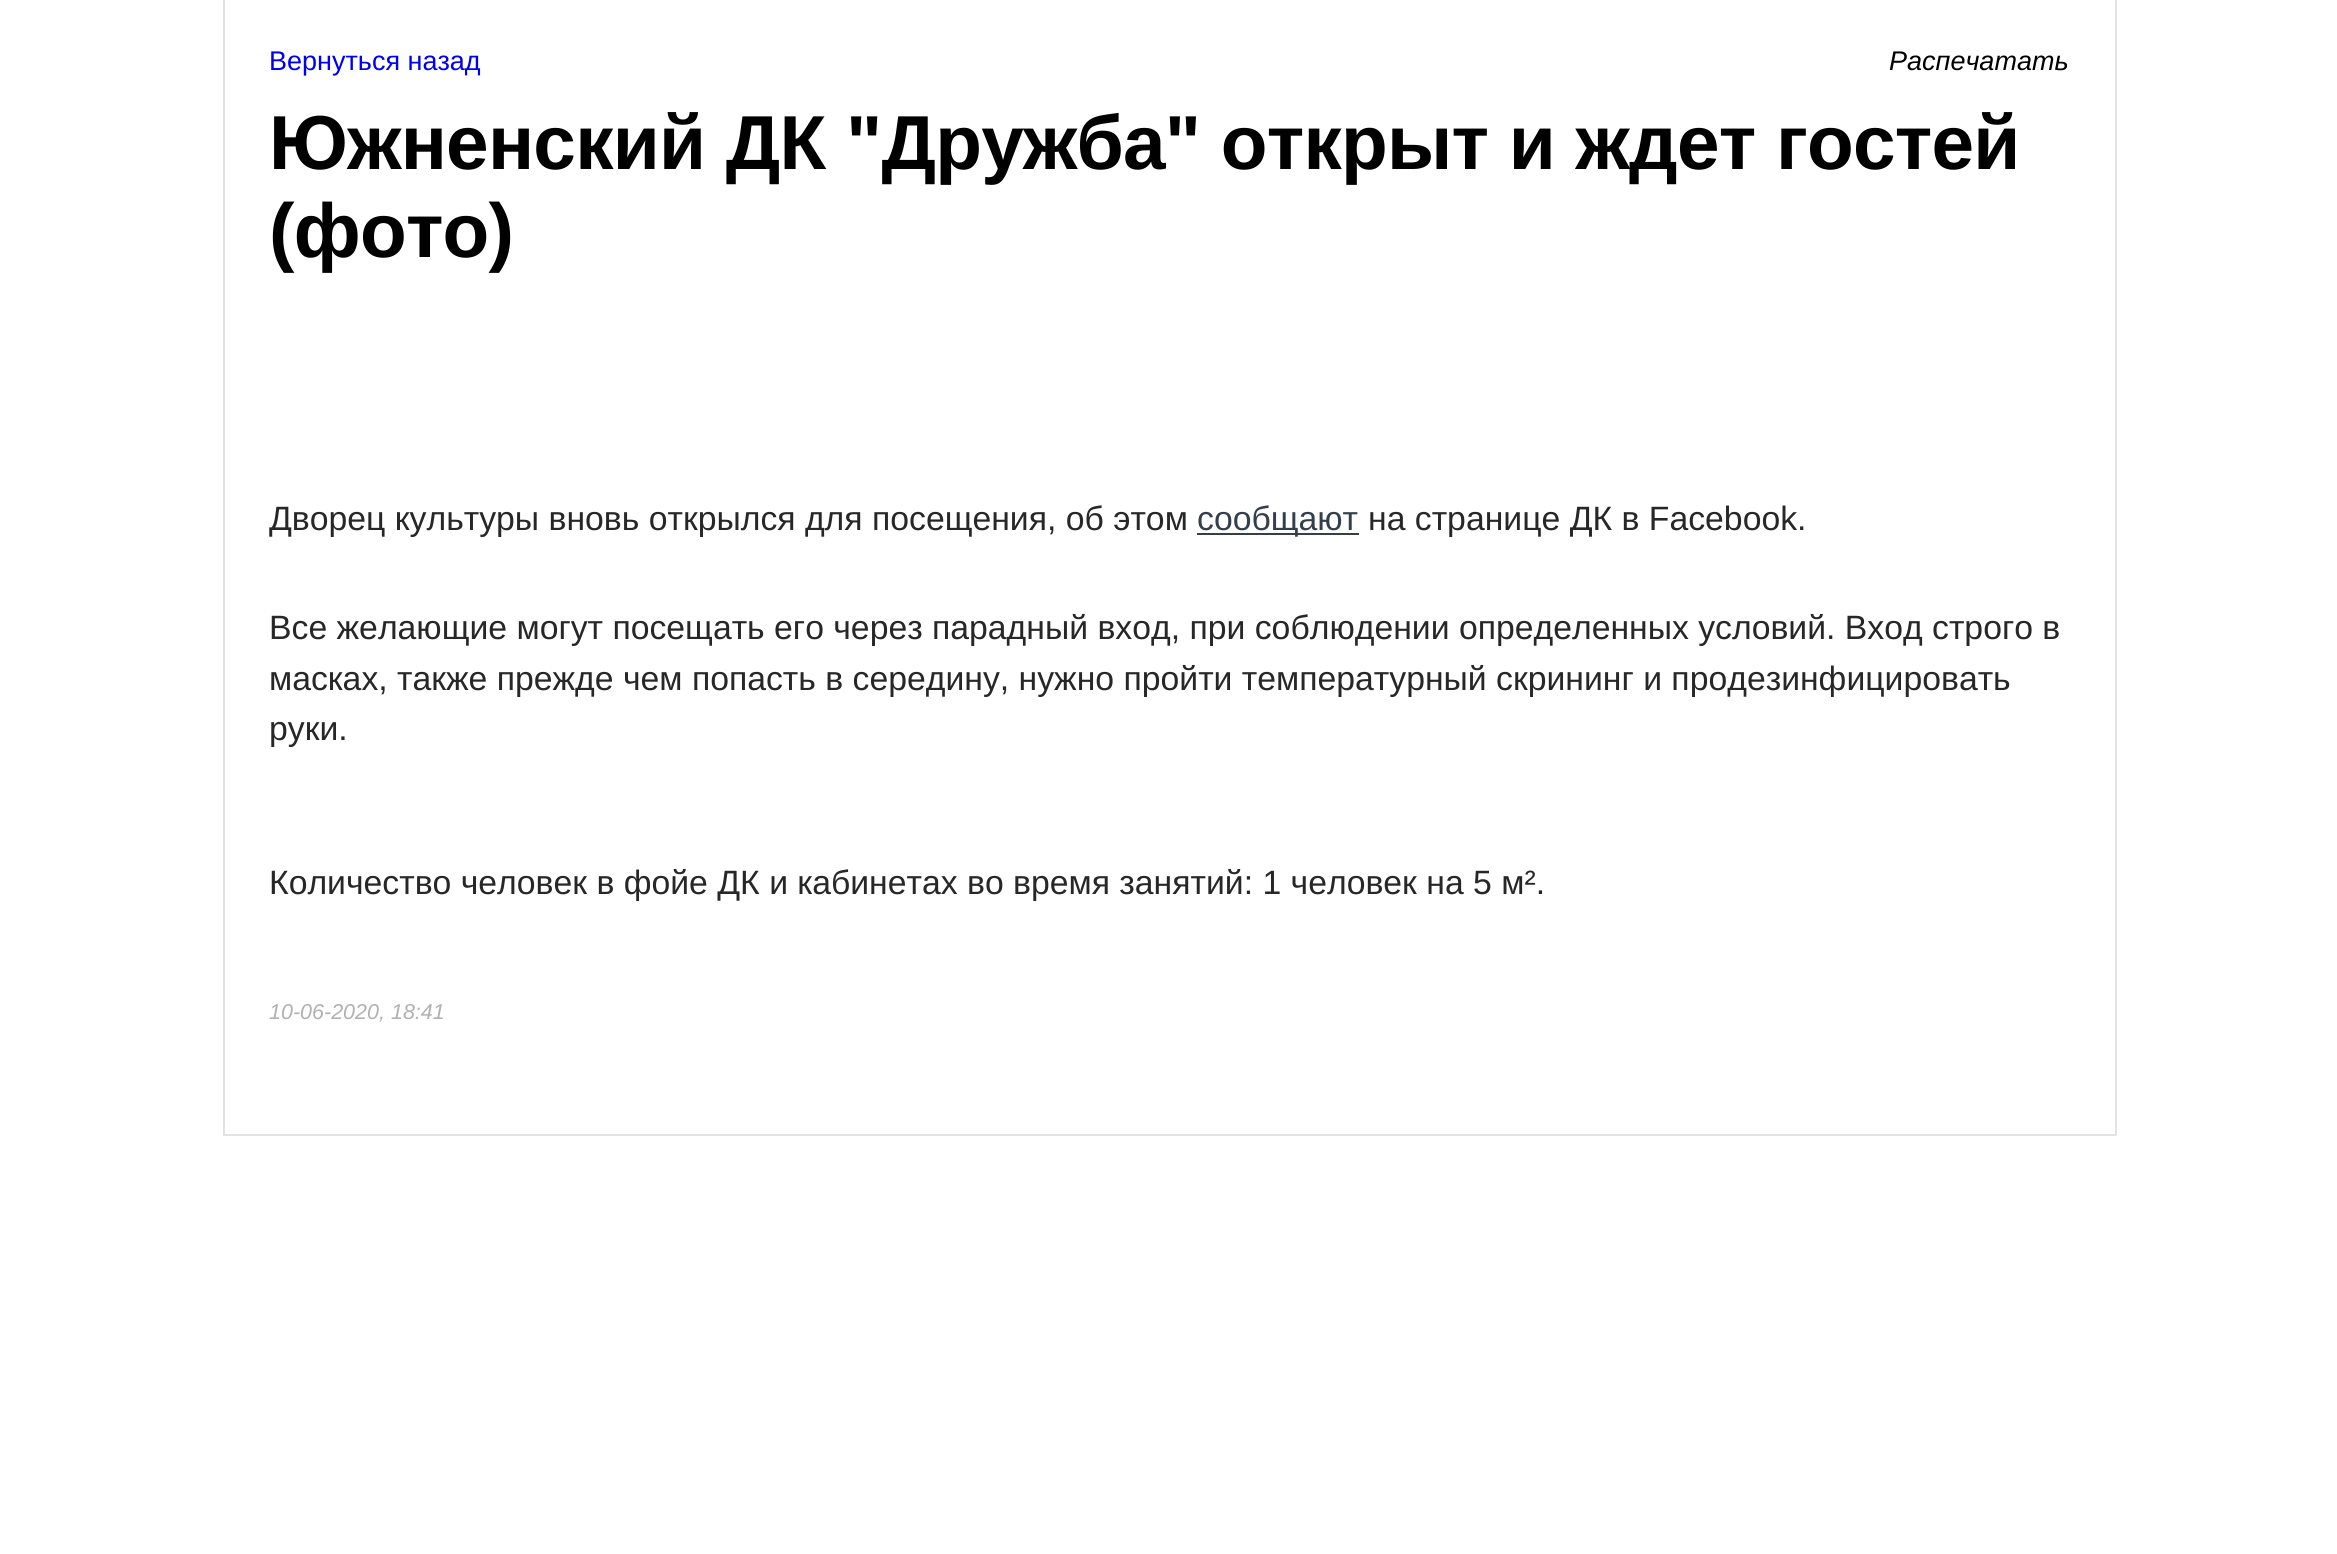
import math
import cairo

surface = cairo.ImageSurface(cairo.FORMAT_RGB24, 2337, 1554)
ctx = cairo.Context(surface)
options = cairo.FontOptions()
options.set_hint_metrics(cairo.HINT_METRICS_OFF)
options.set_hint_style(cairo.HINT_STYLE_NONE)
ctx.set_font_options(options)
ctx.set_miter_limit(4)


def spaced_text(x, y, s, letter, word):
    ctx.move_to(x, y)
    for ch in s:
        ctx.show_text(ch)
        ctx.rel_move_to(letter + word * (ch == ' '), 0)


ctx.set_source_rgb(1, 1, 1)
ctx.paint()
ctx.set_source_rgb(0.89, 0.89, 0.89)
ctx.rectangle(2115, 0, 2, 1136)
ctx.fill()
ctx.rectangle(223, 1134, 1894, 2)
ctx.fill()
ctx.rectangle(223, 0, 2, 1136)
ctx.fill()
ctx.select_font_face("Liberation Sans")
ctx.set_font_size(27)
ctx.set_source_rgb(0, 0, 0.933)
ctx.move_to(269, 70)
ctx.show_text("Вернуться назад")
ctx.select_font_face("Liberation Sans", cairo.FONT_SLANT_ITALIC)
ctx.set_source_rgb(0, 0, 0)
ctx.move_to(1889, 70)
ctx.show_text("Распечатать")
ctx.select_font_face("Liberation Sans", cairo.FONT_SLANT_NORMAL, cairo.FONT_WEIGHT_BOLD)
ctx.set_font_size(76.5)
spaced_text(269, 169, "Южненский ДК \"Дружба\" открыт и ждет гостей", -0.75, 0)
spaced_text(269, 257, "(фото)", -0.75, 0)
ctx.select_font_face("Liberation Sans")
ctx.set_font_size(33.75)
ctx.set_source_rgb(0.153, 0.153, 0.153)
ctx.move_to(269, 530)
ctx.show_text("Дворец культуры вновь открылся для посещения, об этом")
ctx.set_source_rgb(0.208, 0.243, 0.294)
ctx.rectangle(1197, 533, 162, 2)
ctx.fill()
ctx.move_to(1197, 530)
ctx.show_text("сообщают")
ctx.set_source_rgb(0.153, 0.153, 0.153)
ctx.move_to(1368, 530)
ctx.show_text("на странице ДК в Facebook.")
ctx.move_to(269, 639)
ctx.show_text("Все желающие могут посещать его через парадный вход, при соблюдении определенных условий. Вход строго в")
ctx.move_to(269, 690)
ctx.show_text("масках, также прежде чем попасть в середину, нужно пройти температурный скрининг и продезинфицировать")
ctx.move_to(269, 740)
ctx.show_text("руки.")
ctx.move_to(269, 894)
ctx.show_text("Количество человек в фойе ДК и кабинетах во время занятий: 1 человек на 5 м².")
ctx.select_font_face("Liberation Sans", cairo.FONT_SLANT_ITALIC)
ctx.set_font_size(21.5)
ctx.set_source_rgb(0.694, 0.694, 0.694)
ctx.move_to(269, 1019)
ctx.show_text("10-06-2020, 18:41")
surface.write_to_png("page.png")
